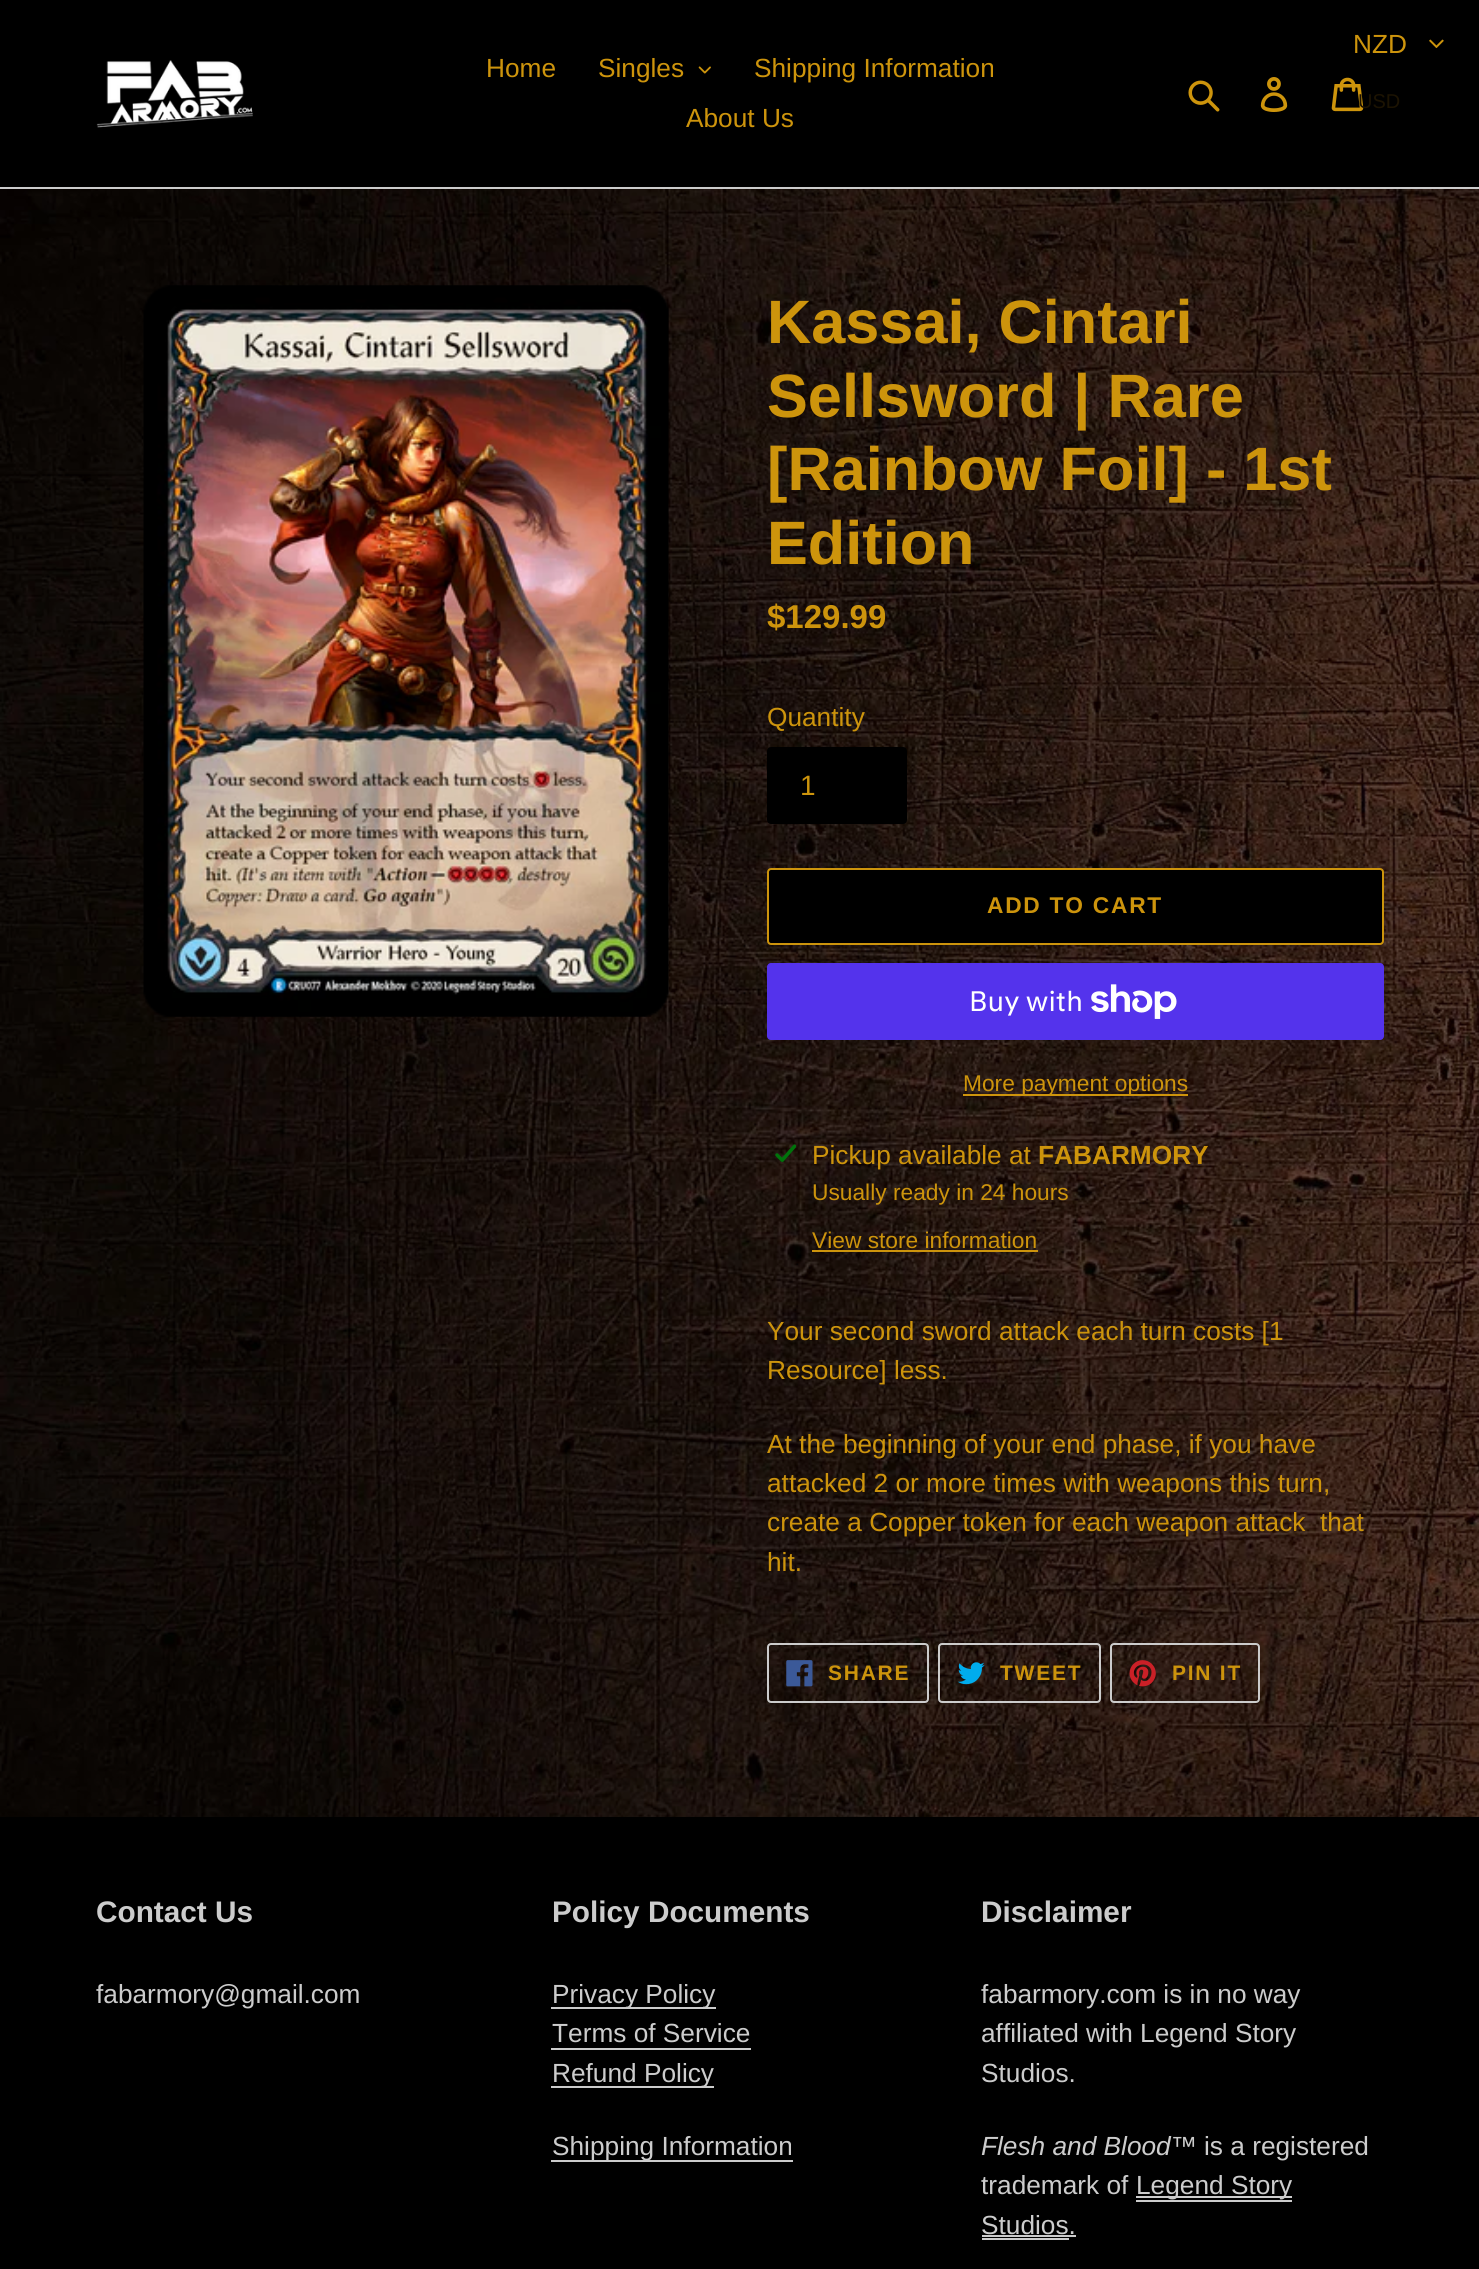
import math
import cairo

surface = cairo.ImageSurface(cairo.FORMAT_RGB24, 1479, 2269)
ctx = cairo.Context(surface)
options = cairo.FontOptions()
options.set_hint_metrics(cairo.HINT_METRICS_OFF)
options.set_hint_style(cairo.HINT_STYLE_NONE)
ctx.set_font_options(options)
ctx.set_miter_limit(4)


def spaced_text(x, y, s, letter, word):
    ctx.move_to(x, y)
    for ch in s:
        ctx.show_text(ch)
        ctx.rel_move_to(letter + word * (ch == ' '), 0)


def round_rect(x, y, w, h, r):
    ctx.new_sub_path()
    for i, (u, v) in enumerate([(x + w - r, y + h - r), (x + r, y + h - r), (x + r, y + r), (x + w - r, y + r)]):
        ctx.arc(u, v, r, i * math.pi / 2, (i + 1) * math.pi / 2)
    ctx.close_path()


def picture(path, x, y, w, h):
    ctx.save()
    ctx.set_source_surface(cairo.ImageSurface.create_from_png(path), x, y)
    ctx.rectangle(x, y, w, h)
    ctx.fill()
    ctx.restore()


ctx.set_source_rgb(1, 1, 1)
ctx.paint()
picture("img1.png", 0, 189, 1479, 1628)
ctx.set_source_rgb(0, 0, 0)
ctx.rectangle(0, 0, 1479, 187)
ctx.fill()
ctx.set_source_rgb(0.8, 0.8, 0.8)
ctx.rectangle(0, 187, 1479, 2)
ctx.fill()
picture("img2.png", 96, 60, 157, 68)
ctx.select_font_face("Liberation Sans")
ctx.set_font_size(26.25)
ctx.set_source_rgb(0.804, 0.58, 0.047)
ctx.move_to(486, 77)
ctx.show_text("Home")
ctx.move_to(598, 77)
ctx.show_text("Singles")
picture("img3.png", 698, 66, 13, 8)
ctx.move_to(754, 77)
ctx.show_text("Shipping Information")
ctx.move_to(686, 127)
ctx.show_text("About Us")
picture("img4.png", 1188, 80, 32, 32)
picture("img5.png", 1260, 77, 28, 35)
picture("img6.png", 1331, 77, 33, 35)
ctx.move_to(1353, 53)
ctx.show_text("NZD")
ctx.set_font_size(20)
ctx.set_source_rgb(0.11, 0.078, 0.008)
ctx.move_to(1358, 108)
ctx.show_text("USD")
picture("img7.png", 1429, 39, 15, 9)
picture("img8.png", 143, 285, 526, 732)
ctx.select_font_face("Liberation Sans", cairo.FONT_SLANT_NORMAL, cairo.FONT_WEIGHT_BOLD)
ctx.set_font_size(61.25)
ctx.set_source_rgb(0.804, 0.58, 0.047)
ctx.move_to(767, 343)
ctx.show_text("Kassai, Cintari")
ctx.move_to(767, 417)
ctx.show_text("Sellsword | Rare")
ctx.move_to(767, 490)
ctx.show_text("[Rainbow Foil] - 1st")
ctx.move_to(767, 564)
ctx.show_text("Edition")
ctx.set_font_size(33)
ctx.move_to(767, 628)
ctx.show_text("$129.99")
ctx.select_font_face("Liberation Sans")
ctx.set_font_size(26.25)
ctx.move_to(767, 726)
ctx.show_text("Quantity")
ctx.set_source_rgb(0, 0, 0)
round_rect(768, 748, 138, 75, 3)
ctx.fill_preserve()
ctx.stroke()
ctx.set_font_size(28)
ctx.set_source_rgb(0.804, 0.58, 0.047)
ctx.move_to(800, 795)
ctx.show_text("1")
ctx.set_source_rgb(0, 0, 0)
round_rect(768, 869, 615, 75, 3)
ctx.fill_preserve()
ctx.set_source_rgb(0.804, 0.58, 0.047)
ctx.stroke()
ctx.select_font_face("Liberation Sans", cairo.FONT_SLANT_NORMAL, cairo.FONT_WEIGHT_BOLD)
ctx.set_font_size(22.75)
spaced_text(987, 913, "ADD TO CART", 1.75, 0)
ctx.set_source_rgb(0.329, 0.2, 0.922)
round_rect(767, 963, 617, 77, 4)
ctx.fill()
ctx.select_font_face("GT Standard")
ctx.set_font_size(28)
ctx.set_source_rgb(1, 1, 1)
ctx.move_to(969, 1011)
ctx.show_text("Buy with")
picture("img9.png", 1091, 984, 86, 35)
ctx.set_source_rgb(0.804, 0.58, 0.047)
ctx.rectangle(963, 1094, 225, 2)
ctx.fill()
ctx.select_font_face("Liberation Sans")
ctx.set_font_size(22.75)
ctx.move_to(963, 1091)
ctx.show_text("More payment options")
picture("img10.png", 775, 1144, 21, 18)
ctx.set_font_size(26.25)
ctx.move_to(812, 1164)
ctx.show_text("Pickup available at")
ctx.select_font_face("Liberation Sans", cairo.FONT_SLANT_NORMAL, cairo.FONT_WEIGHT_BOLD)
ctx.move_to(1038, 1164)
ctx.show_text("FABARMORY")
ctx.select_font_face("Liberation Sans")
ctx.set_font_size(22.75)
ctx.move_to(812, 1200)
ctx.show_text("Usually ready in 24 hours")
ctx.move_to(812, 1248)
ctx.show_text("View store information")
ctx.rectangle(812, 1250, 226, 2)
ctx.fill()
ctx.set_font_size(26.25)
ctx.move_to(767, 1340)
ctx.show_text("Your second sword attack each turn costs [1")
ctx.move_to(767, 1379)
ctx.show_text("Resource] less.")
ctx.move_to(767, 1453)
ctx.show_text("At the beginning of your end phase, if you have")
ctx.move_to(767, 1492)
ctx.show_text("attacked 2 or more times with weapons this turn,")
ctx.move_to(767, 1531)
ctx.show_text("create a Copper token for each weapon attack  that")
ctx.move_to(767, 1571)
ctx.show_text("hit.")
round_rect(768, 1644, 160, 58, 3)
ctx.set_source_rgb(0.8, 0.8, 0.8)
ctx.stroke()
picture("img11.png", 786, 1660, 27, 27)
ctx.select_font_face("Liberation Sans", cairo.FONT_SLANT_NORMAL, cairo.FONT_WEIGHT_BOLD)
ctx.set_font_size(21)
ctx.set_source_rgb(0.804, 0.58, 0.047)
spaced_text(828, 1680, "SHARE", 1.75, 0)
round_rect(939, 1644, 161, 58, 3)
ctx.set_source_rgb(0.8, 0.8, 0.8)
ctx.stroke()
picture("img12.png", 957, 1662, 28, 23)
ctx.set_source_rgb(0.804, 0.58, 0.047)
spaced_text(1000, 1680, "TWEET", 1.75, 0)
round_rect(1111, 1644, 148, 58, 3)
ctx.set_source_rgb(0.8, 0.8, 0.8)
ctx.stroke()
picture("img13.png", 1129, 1660, 27, 27)
ctx.set_source_rgb(0.804, 0.58, 0.047)
spaced_text(1172, 1680, "PIN IT", 1.75, 0)
ctx.set_source_rgb(0, 0, 0)
ctx.rectangle(0, 1817, 1479, 452)
ctx.fill()
ctx.set_font_size(29.75)
ctx.set_source_rgb(0.8, 0.8, 0.8)
ctx.move_to(96, 1922)
ctx.show_text("Contact Us")
ctx.select_font_face("Liberation Sans")
ctx.set_font_size(26.25)
ctx.move_to(96, 2003)
ctx.show_text("fabarmory@gmail.com")
ctx.select_font_face("Liberation Sans", cairo.FONT_SLANT_NORMAL, cairo.FONT_WEIGHT_BOLD)
ctx.set_font_size(29.75)
ctx.move_to(552, 1922)
ctx.show_text("Policy Documents")
ctx.rectangle(551, 2007, 165, 2)
ctx.fill()
ctx.select_font_face("Liberation Sans")
ctx.set_font_size(26.25)
ctx.move_to(552, 2003)
ctx.show_text("Privacy Policy")
ctx.move_to(552, 2042)
ctx.show_text("Terms of Service")
ctx.rectangle(551, 2048, 200, 2)
ctx.fill()
ctx.rectangle(551, 2086, 163, 2)
ctx.fill()
ctx.move_to(552, 2082)
ctx.show_text("Refund Policy")
ctx.rectangle(551, 2160, 242, 2)
ctx.fill()
ctx.move_to(552, 2155)
ctx.show_text("Shipping Information")
ctx.select_font_face("Liberation Sans", cairo.FONT_SLANT_NORMAL, cairo.FONT_WEIGHT_BOLD)
ctx.set_font_size(29.75)
ctx.move_to(981, 1922)
ctx.show_text("Disclaimer")
ctx.select_font_face("Liberation Sans")
ctx.set_font_size(26.25)
ctx.move_to(981, 2003)
ctx.show_text("fabarmory.com is in no way")
ctx.move_to(981, 2042)
ctx.show_text("affiliated with Legend Story")
ctx.move_to(981, 2082)
ctx.show_text("Studios.")
ctx.select_font_face("Liberation Sans", cairo.FONT_SLANT_ITALIC)
ctx.move_to(981, 2155)
ctx.show_text("Flesh and Blood™")
ctx.select_font_face("Liberation Sans")
ctx.move_to(1204, 2155)
ctx.show_text("is a registered")
ctx.move_to(981, 2194)
ctx.show_text("trademark of")
ctx.rectangle(1136, 2196, 156, 2)
ctx.fill()
ctx.move_to(1136, 2194)
ctx.show_text("Legend Story")
ctx.rectangle(1136, 2200, 156, 2)
ctx.fill()
ctx.move_to(981, 2234)
ctx.show_text("Studios.")
ctx.rectangle(982, 2238, 87, 2)
ctx.fill()
ctx.rectangle(982, 2235, 94, 2)
ctx.fill()
surface.write_to_png("page.png")
